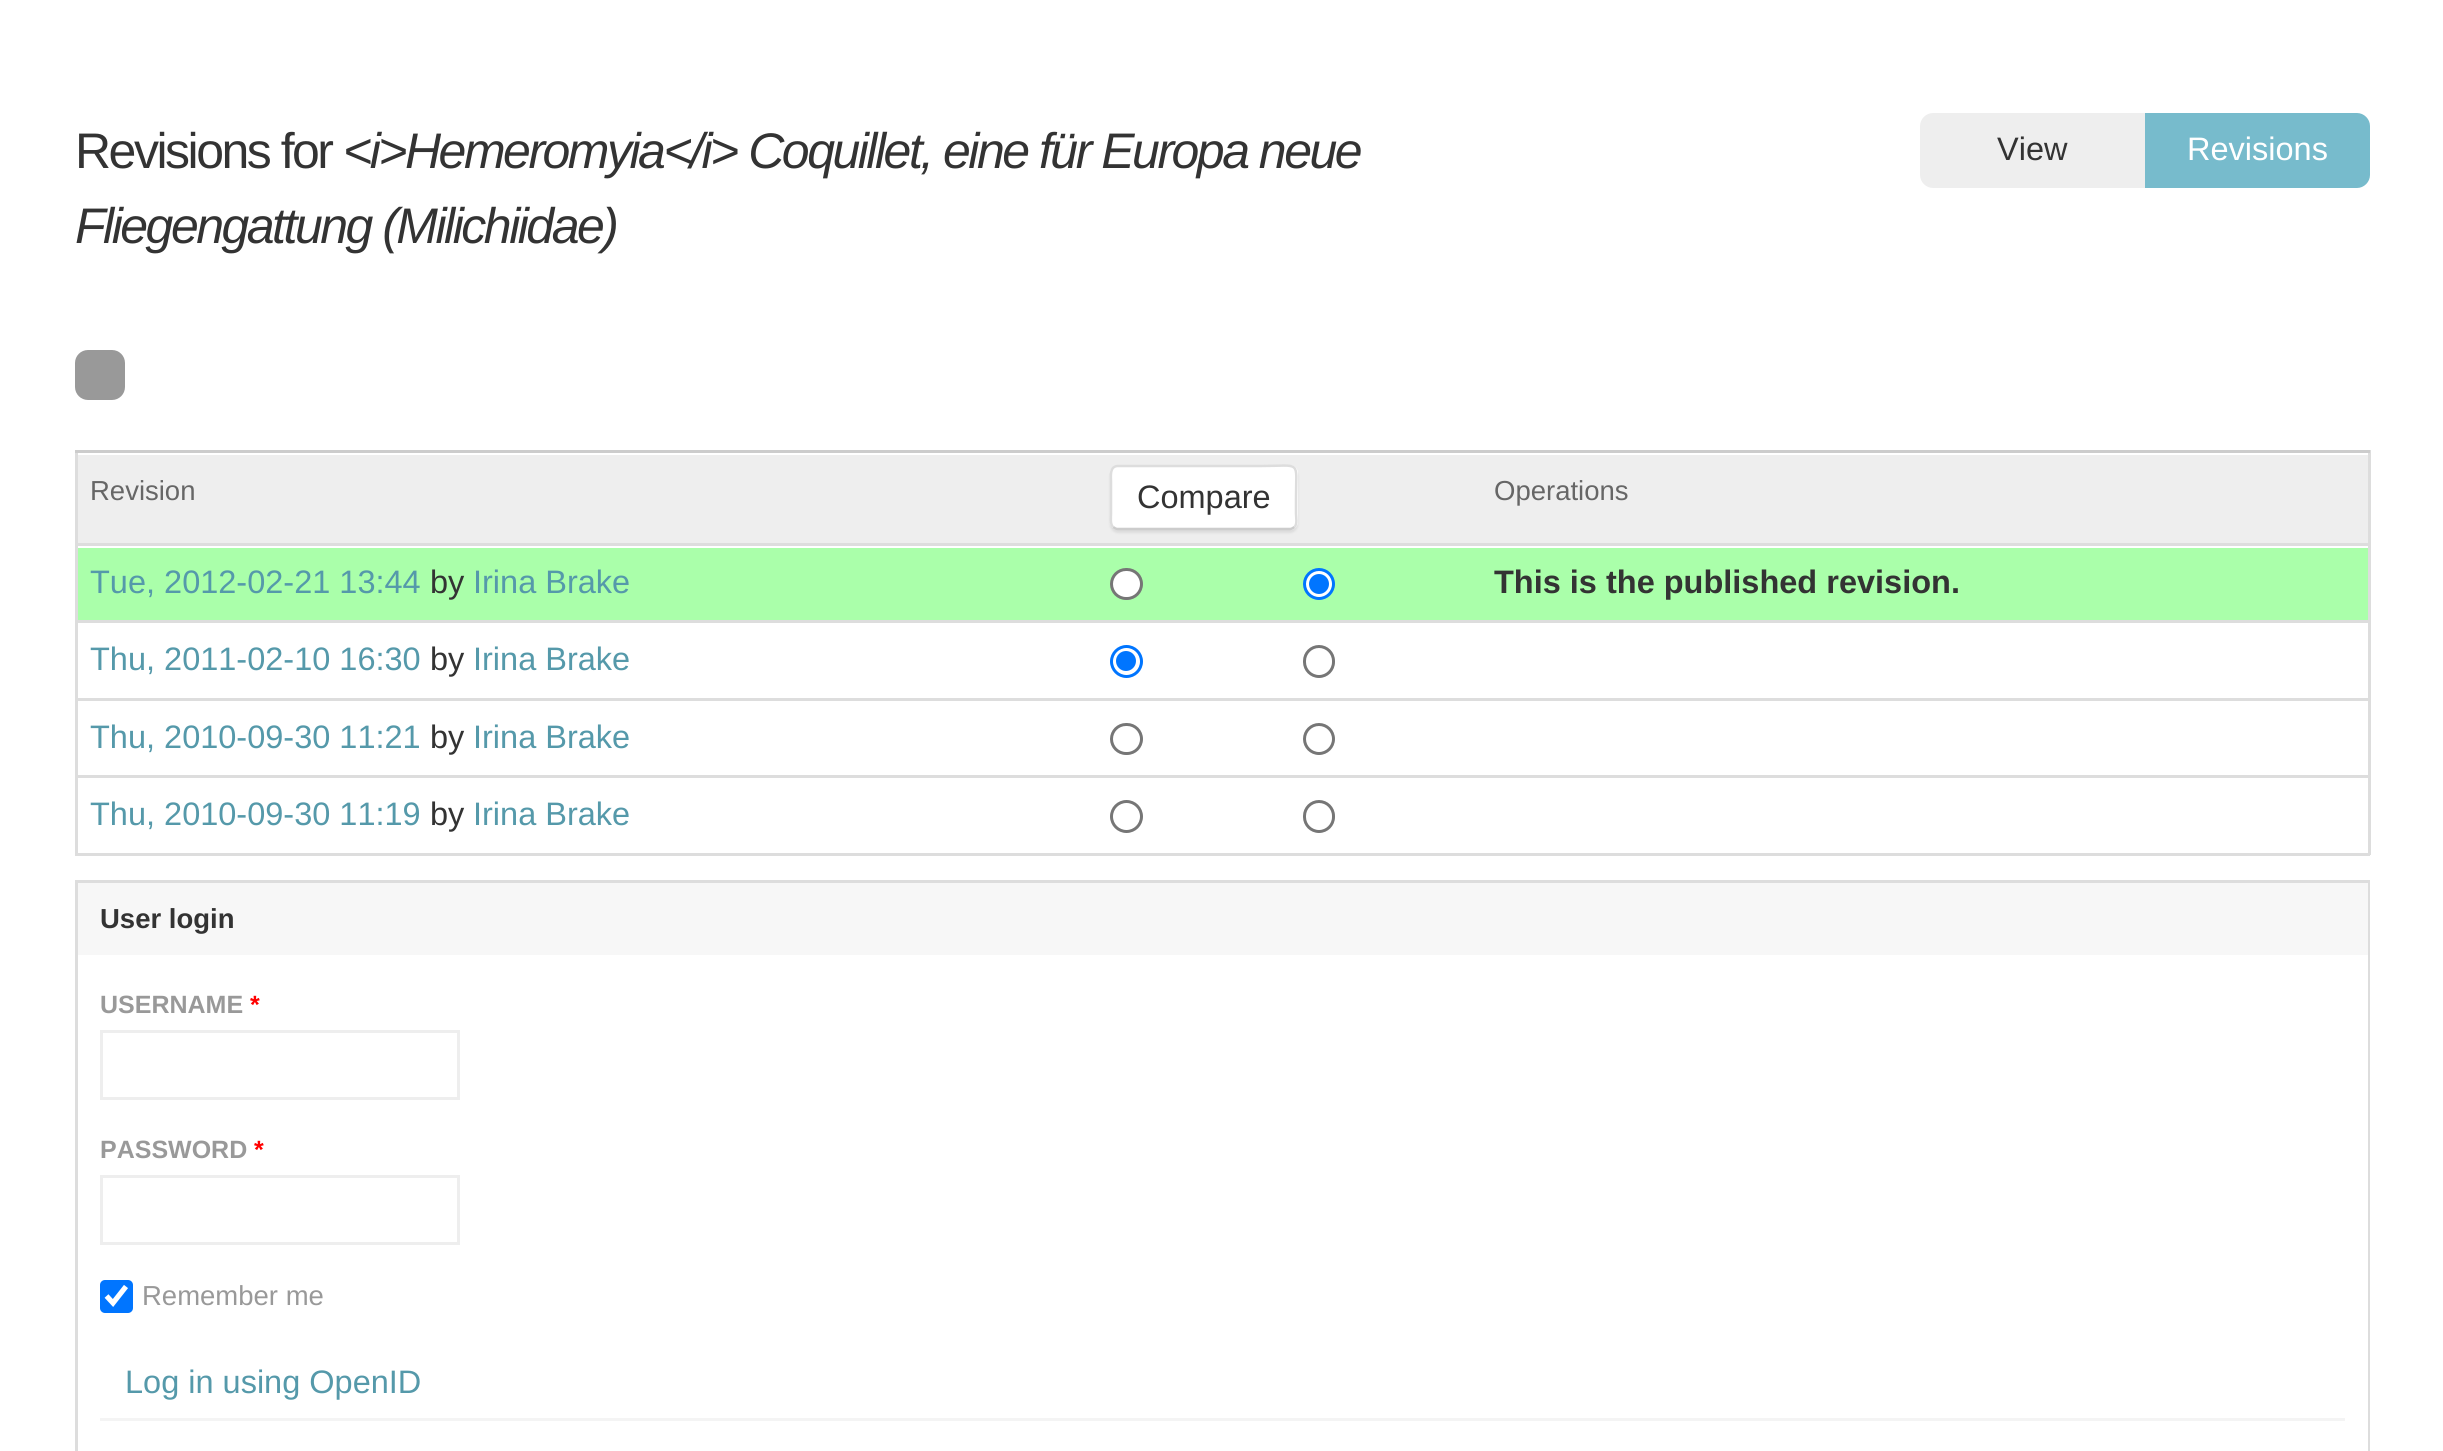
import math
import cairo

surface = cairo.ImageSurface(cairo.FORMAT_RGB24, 2443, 1451)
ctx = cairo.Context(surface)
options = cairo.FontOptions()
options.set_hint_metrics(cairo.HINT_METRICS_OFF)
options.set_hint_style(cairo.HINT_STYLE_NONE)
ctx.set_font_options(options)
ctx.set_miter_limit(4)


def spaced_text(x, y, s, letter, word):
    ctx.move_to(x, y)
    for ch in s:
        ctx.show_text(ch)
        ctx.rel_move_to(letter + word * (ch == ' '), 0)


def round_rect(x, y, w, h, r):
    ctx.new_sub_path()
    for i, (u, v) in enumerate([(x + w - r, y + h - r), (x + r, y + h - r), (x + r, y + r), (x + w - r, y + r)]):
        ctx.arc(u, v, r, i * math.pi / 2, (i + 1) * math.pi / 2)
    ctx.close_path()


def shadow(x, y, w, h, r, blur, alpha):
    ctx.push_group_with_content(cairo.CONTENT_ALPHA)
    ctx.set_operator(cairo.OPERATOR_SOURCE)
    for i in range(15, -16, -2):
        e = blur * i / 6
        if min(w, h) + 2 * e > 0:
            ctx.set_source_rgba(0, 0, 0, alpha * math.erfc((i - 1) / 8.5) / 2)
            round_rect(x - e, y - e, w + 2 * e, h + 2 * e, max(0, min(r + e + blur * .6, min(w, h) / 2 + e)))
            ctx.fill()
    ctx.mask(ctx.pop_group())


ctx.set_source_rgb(1, 1, 1)
ctx.paint()
ctx.select_font_face("Liberation Sans")
ctx.set_font_size(50)
ctx.set_source_rgb(0.2, 0.2, 0.2)
spaced_text(75, 168, "Revisions for", -2.5, 0)
ctx.select_font_face("Liberation Sans", cairo.FONT_SLANT_ITALIC)
spaced_text(343, 168, "<i>Hemeromyia</i> Coquillet, eine für Europa neue", -2.5, 0)
spaced_text(75, 243, "Fliegengattung (Milichiidae)", -2.5, 0)
ctx.set_source_rgb(0.933, 0.933, 0.933)
ctx.new_path()
ctx.move_to(1933, 113)
ctx.line_to(2145, 113)
ctx.line_to(2145, 188)
ctx.line_to(1933, 188)
ctx.curve_to(1926, 188, 1920, 182, 1920, 175)
ctx.line_to(1920, 126)
ctx.curve_to(1920, 119, 1926, 113, 1933, 113)
ctx.close_path()
ctx.fill()
ctx.select_font_face("Liberation Sans")
ctx.set_font_size(32.5)
ctx.set_source_rgb(0.2, 0.2, 0.2)
ctx.move_to(1997, 160)
ctx.show_text("View")
ctx.set_source_rgb(0.467, 0.733, 0.8)
ctx.new_path()
ctx.move_to(2145, 113)
ctx.line_to(2357, 113)
ctx.curve_to(2364, 113, 2370, 119, 2370, 126)
ctx.line_to(2370, 175)
ctx.curve_to(2370, 182, 2364, 188, 2357, 188)
ctx.line_to(2145, 188)
ctx.close_path()
ctx.fill()
ctx.set_source_rgb(1, 1, 1)
ctx.move_to(2187, 160)
ctx.show_text("Revisions")
ctx.set_source_rgb(0.6, 0.6, 0.6)
round_rect(75, 350, 50, 50, 13)
ctx.fill()
ctx.set_source_rgb(0.867, 0.867, 0.867)
ctx.rectangle(2368, 450, 3, 405)
ctx.fill()
ctx.rectangle(75, 853, 2295, 3)
ctx.fill()
ctx.rectangle(75, 450, 3, 405)
ctx.fill()
ctx.set_source_rgb(0.933, 0.933, 0.933)
ctx.rectangle(78, 455, 2290, 88)
ctx.fill()
ctx.set_font_size(27.5)
ctx.set_source_rgb(0.4, 0.4, 0.4)
ctx.move_to(90, 500)
ctx.show_text("Revision")
ctx.set_source_rgb(0.867, 0.867, 0.867)
shadow(1110, 468, 188, 65, 8, 1, 1)
ctx.set_source_rgb(1, 1, 1)
round_rect(1110, 465, 188, 65, 8)
ctx.fill()
ctx.new_path()
ctx.move_to(1294.5, 527)
ctx.curve_to(1293, 528, 1291.5, 529, 1290, 529)
ctx.line_to(1117.5, 529)
ctx.curve_to(1116, 529, 1114.5, 528, 1113, 527)
ctx.set_source_rgb(0.8, 0.8, 0.8)
ctx.set_line_width(2.5)
ctx.stroke()
ctx.new_path()
ctx.move_to(1113, 527)
ctx.curve_to(1110, 524, 1111, 517.5, 1111, 514)
ctx.line_to(1111, 481)
ctx.curve_to(1111, 476, 1109.5, 466.5, 1117.5, 466)
ctx.line_to(1261, 466)
ctx.curve_to(1302, 466, 1296, 459.5, 1296, 497.5)
ctx.line_to(1296, 514)
ctx.curve_to(1296, 517.5, 1297.5, 524, 1294.5, 527)
ctx.set_source_rgb(0.867, 0.867, 0.867)
ctx.stroke()
ctx.set_font_size(32.5)
ctx.set_source_rgb(0.2, 0.2, 0.2)
ctx.move_to(1137, 508)
ctx.show_text("Compare")
ctx.set_source_rgb(0.8, 0.8, 0.8)
ctx.rectangle(75, 450, 2295, 3)
ctx.fill()
ctx.set_font_size(27.5)
ctx.set_source_rgb(0.4, 0.4, 0.4)
ctx.move_to(1494, 500)
ctx.show_text("Operations")
ctx.set_source_rgb(0.667, 1, 0.667)
ctx.rectangle(78, 548, 2290, 72)
ctx.fill()
ctx.set_font_size(32.5)
ctx.set_source_rgb(0.333, 0.6, 0.667)
ctx.move_to(90, 593)
ctx.show_text("Tue, 2012-02-21 13:44")
ctx.set_source_rgb(0.2, 0.2, 0.2)
ctx.move_to(430, 593)
ctx.show_text("by")
ctx.set_source_rgb(0.333, 0.6, 0.667)
ctx.move_to(473, 593)
ctx.show_text("Irina Brake")
ctx.set_source_rgb(1, 1, 1)
round_rect(1111.5, 569.5, 30, 29, 14.5)
ctx.fill_preserve()
ctx.set_source_rgb(0.463, 0.463, 0.463)
ctx.set_line_width(3)
ctx.stroke()
ctx.set_source_rgb(1, 1, 1)
ctx.arc(1319, 584, 14.5, 0, 2 * math.pi)
ctx.fill_preserve()
ctx.set_source_rgb(0, 0.459, 1)
ctx.stroke()
ctx.arc(1319, 584, 10, 0, 2 * math.pi)
ctx.fill()
ctx.set_source_rgb(0.867, 0.867, 0.867)
ctx.rectangle(75, 543, 2295, 3)
ctx.fill()
ctx.select_font_face("Liberation Sans", cairo.FONT_SLANT_NORMAL, cairo.FONT_WEIGHT_BOLD)
ctx.set_source_rgb(0.2, 0.2, 0.2)
ctx.move_to(1494, 593)
ctx.show_text("This is the published revision.")
ctx.set_source_rgb(0.867, 0.867, 0.867)
ctx.rectangle(75, 620, 2295, 3)
ctx.fill()
ctx.select_font_face("Liberation Sans")
ctx.set_source_rgb(0.333, 0.6, 0.667)
ctx.move_to(90, 670)
ctx.show_text("Thu, 2011-02-10 16:30")
ctx.set_source_rgb(0.2, 0.2, 0.2)
ctx.move_to(430, 670)
ctx.show_text("by")
ctx.set_source_rgb(0.333, 0.6, 0.667)
ctx.move_to(473, 670)
ctx.show_text("Irina Brake")
ctx.new_path()
ctx.arc(1126.5, 661.5, 15, 0, 2 * math.pi)
ctx.set_source_rgb(0, 0.459, 1)
ctx.stroke()
ctx.arc(1126, 661, 10, 0, 2 * math.pi)
ctx.fill()
round_rect(1304.5, 646.5, 29, 30, 14.5)
ctx.set_source_rgb(0.463, 0.463, 0.463)
ctx.stroke()
ctx.set_source_rgb(0.867, 0.867, 0.867)
ctx.rectangle(75, 698, 2295, 3)
ctx.fill()
ctx.set_source_rgb(0.333, 0.6, 0.667)
ctx.move_to(90, 748)
ctx.show_text("Thu, 2010-09-30 11:21")
ctx.set_source_rgb(0.2, 0.2, 0.2)
ctx.move_to(430, 748)
ctx.show_text("by")
ctx.set_source_rgb(0.333, 0.6, 0.667)
ctx.move_to(473, 748)
ctx.show_text("Irina Brake")
round_rect(1111.5, 724.5, 30, 29, 14.5)
ctx.set_source_rgb(0.463, 0.463, 0.463)
ctx.stroke()
ctx.arc(1319, 739, 14.5, 0, 2 * math.pi)
ctx.stroke()
ctx.set_source_rgb(0.867, 0.867, 0.867)
ctx.rectangle(75, 775, 2295, 3)
ctx.fill()
ctx.set_source_rgb(0.333, 0.6, 0.667)
ctx.move_to(90, 825)
ctx.show_text("Thu, 2010-09-30 11:19")
ctx.set_source_rgb(0.2, 0.2, 0.2)
ctx.move_to(430, 825)
ctx.show_text("by")
ctx.set_source_rgb(0.333, 0.6, 0.667)
ctx.move_to(473, 825)
ctx.show_text("Irina Brake")
ctx.new_path()
ctx.arc(1126.5, 816.5, 15, 0, 2 * math.pi)
ctx.set_source_rgb(0.463, 0.463, 0.463)
ctx.stroke()
round_rect(1304.5, 801.5, 29, 30, 14.5)
ctx.stroke()
ctx.rectangle(76.5, 881.5, 2292, 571)
ctx.set_source_rgb(0.867, 0.867, 0.867)
ctx.stroke()
ctx.set_source_rgb(0.965, 0.965, 0.965)
ctx.rectangle(78, 883, 2290, 72)
ctx.fill()
ctx.select_font_face("Liberation Sans", cairo.FONT_SLANT_NORMAL, cairo.FONT_WEIGHT_BOLD)
ctx.set_font_size(27.5)
ctx.set_source_rgb(0.2, 0.2, 0.2)
ctx.move_to(100, 928)
ctx.show_text("User login")
ctx.set_source_rgb(1, 1, 1)
ctx.rectangle(2367, 955, 1, 496)
ctx.fill()
ctx.set_font_size(25)
ctx.set_source_rgb(0.6, 0.6, 0.6)
ctx.move_to(100, 1013)
ctx.show_text("USERNAME")
ctx.set_source_rgb(1, 0, 0)
ctx.move_to(250, 1013)
ctx.show_text("*")
ctx.rectangle(101.5, 1031.5, 357, 67)
ctx.set_source_rgb(0.933, 0.933, 0.933)
ctx.stroke()
ctx.set_source_rgb(0.6, 0.6, 0.6)
ctx.move_to(100, 1158)
ctx.show_text("PASSWORD")
ctx.set_source_rgb(1, 0, 0)
ctx.move_to(254, 1158)
ctx.show_text("*")
ctx.rectangle(101.5, 1176.5, 357, 67)
ctx.set_source_rgb(0.933, 0.933, 0.933)
ctx.stroke()
ctx.set_source_rgb(0, 0.459, 1)
round_rect(100, 1280, 33, 33, 5)
ctx.fill()
ctx.new_path()
ctx.move_to(106.5, 1296)
ctx.line_to(113, 1303)
ctx.line_to(126, 1286.5)
ctx.set_source_rgb(1, 1, 1)
ctx.set_line_width(5.2)
ctx.stroke()
ctx.select_font_face("Liberation Sans")
ctx.set_font_size(27.5)
ctx.set_source_rgb(0.6, 0.6, 0.6)
ctx.move_to(142, 1305)
ctx.show_text("Remember me")
ctx.set_source_rgb(0.957, 0.957, 0.957)
ctx.rectangle(100, 1418, 2245, 3)
ctx.fill()
ctx.set_font_size(32.5)
ctx.set_source_rgb(0.333, 0.6, 0.667)
ctx.move_to(125, 1393)
ctx.show_text("Log in using OpenID")
surface.write_to_png("page.png")
